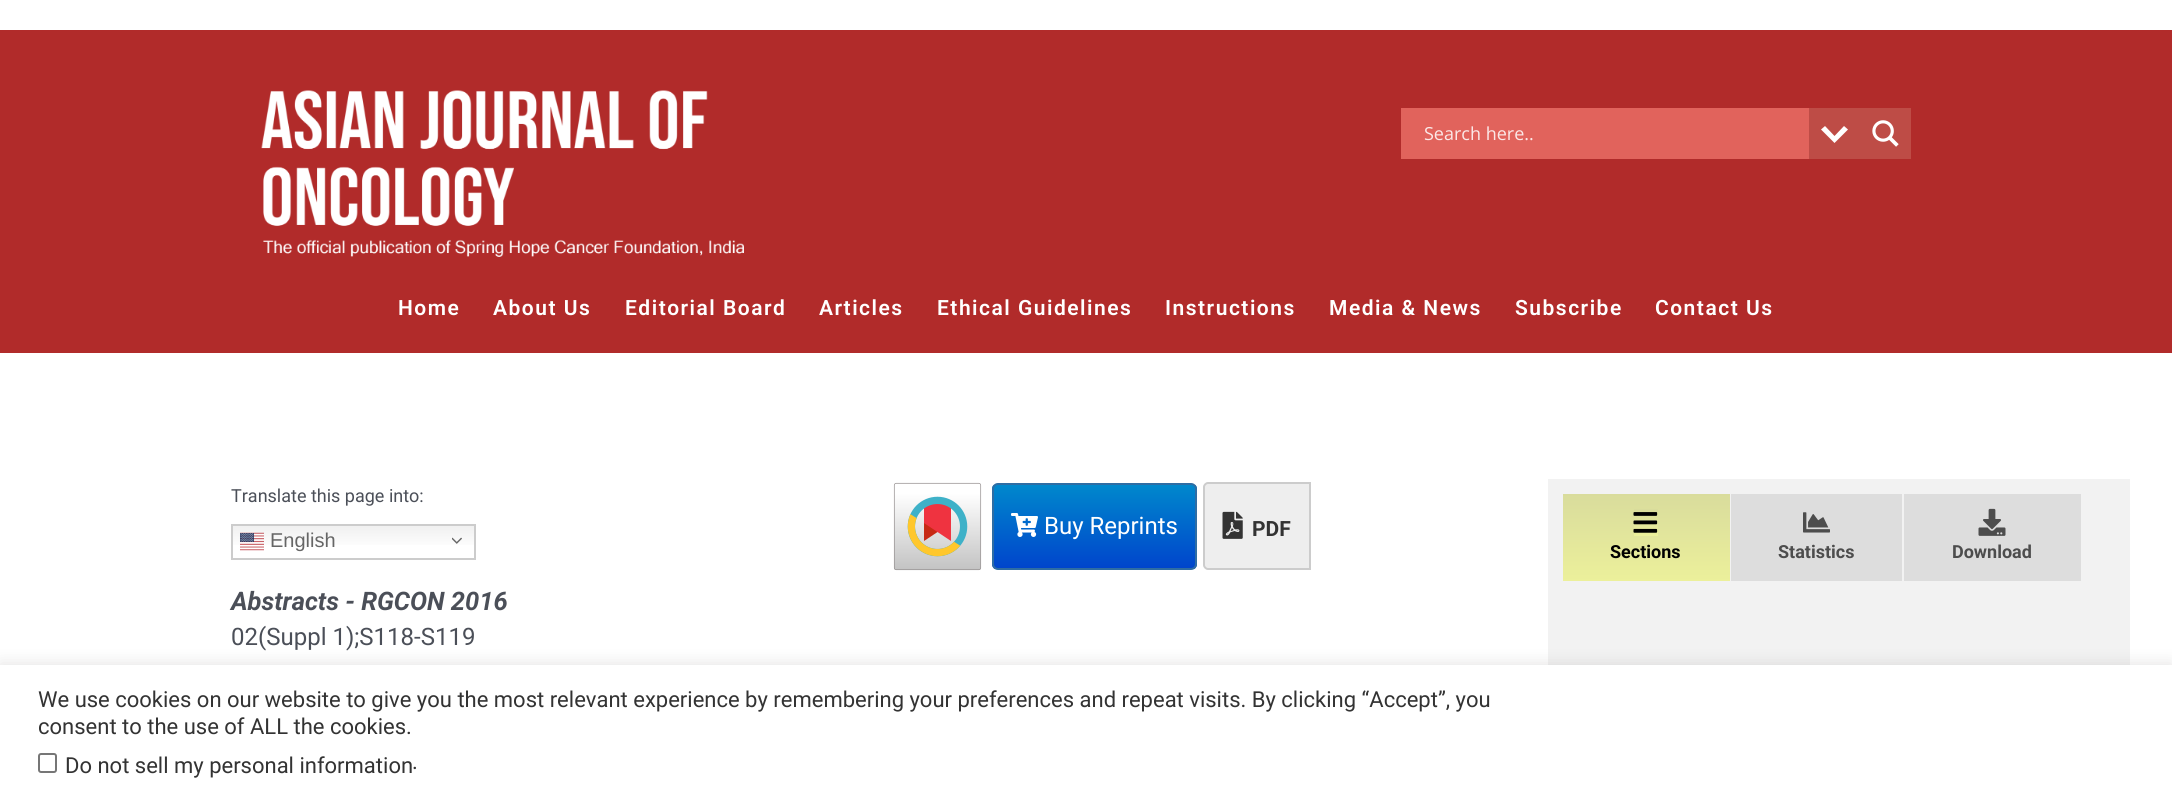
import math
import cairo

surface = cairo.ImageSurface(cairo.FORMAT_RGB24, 2172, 799)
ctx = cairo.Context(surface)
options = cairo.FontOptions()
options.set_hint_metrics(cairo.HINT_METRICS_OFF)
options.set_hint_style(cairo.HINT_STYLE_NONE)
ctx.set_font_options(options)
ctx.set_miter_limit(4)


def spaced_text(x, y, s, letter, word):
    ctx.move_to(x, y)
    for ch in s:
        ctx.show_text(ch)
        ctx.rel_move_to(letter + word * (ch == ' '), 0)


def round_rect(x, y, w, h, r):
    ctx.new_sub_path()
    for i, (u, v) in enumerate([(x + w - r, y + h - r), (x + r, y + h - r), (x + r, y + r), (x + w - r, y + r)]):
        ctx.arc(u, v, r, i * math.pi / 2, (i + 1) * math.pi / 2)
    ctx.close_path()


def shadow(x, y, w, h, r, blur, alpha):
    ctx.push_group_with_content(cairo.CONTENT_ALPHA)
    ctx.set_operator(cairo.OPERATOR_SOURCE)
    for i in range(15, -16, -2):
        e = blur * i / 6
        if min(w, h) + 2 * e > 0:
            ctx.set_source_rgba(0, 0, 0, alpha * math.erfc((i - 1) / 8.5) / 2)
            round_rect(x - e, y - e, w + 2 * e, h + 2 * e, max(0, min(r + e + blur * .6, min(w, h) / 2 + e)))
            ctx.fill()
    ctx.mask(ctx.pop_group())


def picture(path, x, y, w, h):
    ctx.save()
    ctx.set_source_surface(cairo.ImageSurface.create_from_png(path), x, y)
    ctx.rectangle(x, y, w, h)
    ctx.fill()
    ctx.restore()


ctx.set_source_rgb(1, 1, 1)
ctx.paint()
ctx.set_source_rgb(0.694, 0.169, 0.165)
ctx.rectangle(0, 30, 2172, 323)
ctx.fill()
picture("img1.png", 261, 90, 483, 167)
ctx.set_source_rgb(0.882, 0.388, 0.361)
ctx.rectangle(1401, 108, 408, 51)
ctx.fill()
ctx.set_source_rgb(0.745, 0.298, 0.275)
ctx.rectangle(1809, 108, 102, 51)
ctx.fill()
ctx.set_source_rgb(1, 1, 1)
ctx.new_path()
ctx.move_to(1844, 126)
ctx.line_to(1848, 129.5)
ctx.line_to(1834.5, 143)
ctx.line_to(1821, 129.5)
ctx.line_to(1825, 126)
ctx.line_to(1834.5, 136)
ctx.close_path()
ctx.fill()
ctx.select_font_face("Open Sans")
ctx.set_font_size(18)
ctx.set_source_rgb(0.984, 0.91, 0.906)
ctx.move_to(1424, 140)
ctx.show_text("Search here..")
picture("img2.png", 1872, 120, 27, 27)
ctx.select_font_face("Roboto SemiBold")
ctx.set_font_size(21)
ctx.set_source_rgb(1, 1, 1)
spaced_text(398, 315, "Home", 1.5, 0)
spaced_text(493, 315, "About Us", 1.5, 0)
spaced_text(625, 315, "Editorial Board", 1.5, 0)
spaced_text(819, 315, "Articles", 1.5, 0)
spaced_text(937, 315, "Ethical Guidelines", 1.5, 0)
spaced_text(1165, 315, "Instructions", 1.5, 0)
spaced_text(1329, 315, "Media & News", 1.5, 0)
spaced_text(1515, 315, "Subscribe", 1.5, 0)
spaced_text(1655, 315, "Contact Us", 1.5, 0)
ctx.select_font_face("Roboto")
ctx.set_font_size(18)
ctx.set_source_rgb(0.294, 0.31, 0.345)
ctx.move_to(231, 502)
ctx.show_text("Translate this page into:")
gradient = cairo.LinearGradient(353, 524, 353, 560)
gradient.add_color_stop_rgba(0, 0.937, 0.937, 0.937, 1)
gradient.add_color_stop_rgba(0.7, 1, 1, 1, 1)
ctx.set_source(gradient)
ctx.rectangle(233, 526, 241, 19)
ctx.fill()
ctx.rectangle(232, 525, 243, 34)
ctx.set_source_rgb(0.8, 0.8, 0.8)
ctx.stroke()
picture("img3.png", 240, 532, 24, 19)
ctx.select_font_face("Liberation Sans")
ctx.set_font_size(20)
ctx.set_source_rgb(0.4, 0.4, 0.4)
ctx.move_to(270, 547)
ctx.show_text("English")
picture("img4.png", 452, 537, 10, 7)
ctx.select_font_face("Roboto", cairo.FONT_SLANT_ITALIC, cairo.FONT_WEIGHT_BOLD)
ctx.set_font_size(25.5)
ctx.set_source_rgb(0.294, 0.31, 0.345)
ctx.move_to(231, 610)
ctx.show_text("Abstracts - RGCON 2016")
ctx.select_font_face("Roboto")
ctx.set_font_size(24)
ctx.move_to(231, 645)
ctx.show_text("02(Suppl 1);S118-S119")
picture("img5.png", 893, 482, 89, 89)
ctx.save()
round_rect(992, 483, 205, 87, 6)
ctx.clip()
gradient = cairo.LinearGradient(1094, 485, 1094, 569)
gradient.add_color_stop_rgba(0, 0, 0.533, 0.8, 1)
gradient.add_color_stop_rgba(1, 0, 0.267, 0.8, 1)
ctx.set_source(gradient)
ctx.rectangle(992, 485, 205, 84)
ctx.fill()
ctx.restore()
round_rect(993, 484, 203, 85, 5)
ctx.set_source_rgb(0.18, 0.427, 0.643)
ctx.stroke()
picture("img6.png", 1011, 513, 27, 24)
ctx.set_source_rgb(1, 1, 1)
ctx.move_to(1044, 534)
ctx.show_text("Buy Reprints")
ctx.set_source_rgb(0.933, 0.933, 0.933)
ctx.new_path()
ctx.move_to(1208, 483)
ctx.line_to(1310, 483)
ctx.line_to(1310, 569)
ctx.line_to(1208, 569)
ctx.curve_to(1206, 569, 1204, 567, 1204, 565)
ctx.line_to(1204, 487)
ctx.curve_to(1204, 485, 1206, 483, 1208, 483)
ctx.close_path()
ctx.fill_preserve()
ctx.set_source_rgb(0.8, 0.8, 0.8)
ctx.stroke()
picture("img7.png", 1222, 511, 21, 28)
ctx.select_font_face("Roboto", cairo.FONT_SLANT_NORMAL, cairo.FONT_WEIGHT_BOLD)
ctx.set_font_size(21)
ctx.set_source_rgb(0.2, 0.2, 0.2)
ctx.move_to(1252, 536)
ctx.show_text("PDF")
ctx.set_source_rgb(0.949, 0.949, 0.949)
ctx.rectangle(1548, 479, 582, 186)
ctx.fill()
gradient = cairo.LinearGradient(1646, 494, 1646, 581)
gradient.add_color_stop_rgba(0, 0.851, 0.863, 0.612, 1)
gradient.add_color_stop_rgba(1, 0.925, 0.941, 0.608, 1)
ctx.set_source(gradient)
ctx.rectangle(1563, 494, 167, 6)
ctx.fill()
ctx.new_path()
ctx.move_to(1569, 494)
ctx.line_to(1724, 494)
ctx.curve_to(1727.5, 494, 1730, 496.5, 1730, 500)
ctx.line_to(1730, 581)
ctx.line_to(1563, 581)
ctx.line_to(1563, 500)
ctx.curve_to(1563, 496.5, 1565.5, 494, 1569, 494)
ctx.close_path()
ctx.fill()
gradient = cairo.LinearGradient(1646, 509, 1646, 536)
gradient.add_color_stop_rgba(0, 0.851, 0.863, 0.612, 1)
gradient.add_color_stop_rgba(1, 0.925, 0.941, 0.608, 1)
ctx.set_source(gradient)
ctx.rectangle(1634, 509, 24, 27)
ctx.fill()
picture("img8.png", 1633, 512, 25, 21)
ctx.set_font_size(18)
ctx.set_source_rgb(0, 0, 0)
ctx.move_to(1610, 558)
ctx.show_text("Sections")
ctx.set_source_rgb(0.867, 0.867, 0.867)
ctx.rectangle(1731, 494, 171, 87)
ctx.fill()
picture("img9.png", 1803, 512, 27, 21)
ctx.set_source_rgb(0.302, 0.302, 0.302)
ctx.move_to(1778, 558)
ctx.show_text("Statistics")
ctx.set_source_rgb(0.867, 0.867, 0.867)
ctx.rectangle(1904, 494, 177, 87)
ctx.fill()
picture("img10.png", 1978, 508, 28, 28)
ctx.set_source_rgb(0.302, 0.302, 0.302)
ctx.move_to(1952, 558)
ctx.show_text("Download")
ctx.set_source_rgb(0.675, 0.671, 0.671)
shadow(0, 663, 2172, 135, 0, 7.5, 0.3)
ctx.set_source_rgb(1, 1, 1)
ctx.rectangle(0, 665, 2172, 134)
ctx.fill()
ctx.select_font_face("Roboto")
ctx.set_font_size(22)
ctx.set_source_rgb(0.2, 0.2, 0.2)
ctx.move_to(38, 707)
ctx.show_text("We use cookies on our website to give you the most relevant experience by remembering your preferences and repeat visits. By clicking “Accept”, you")
ctx.move_to(38, 734)
ctx.show_text("consent to the use of ALL the cookies.")
round_rect(39, 754, 17, 18, 2)
ctx.set_source_rgb(0.463, 0.463, 0.463)
ctx.stroke()
ctx.set_source_rgb(0.2, 0.2, 0.2)
ctx.move_to(65, 773)
ctx.show_text("Do not sell my personal information")
ctx.move_to(412, 769)
ctx.show_text(".")
surface.write_to_png("page.png")
